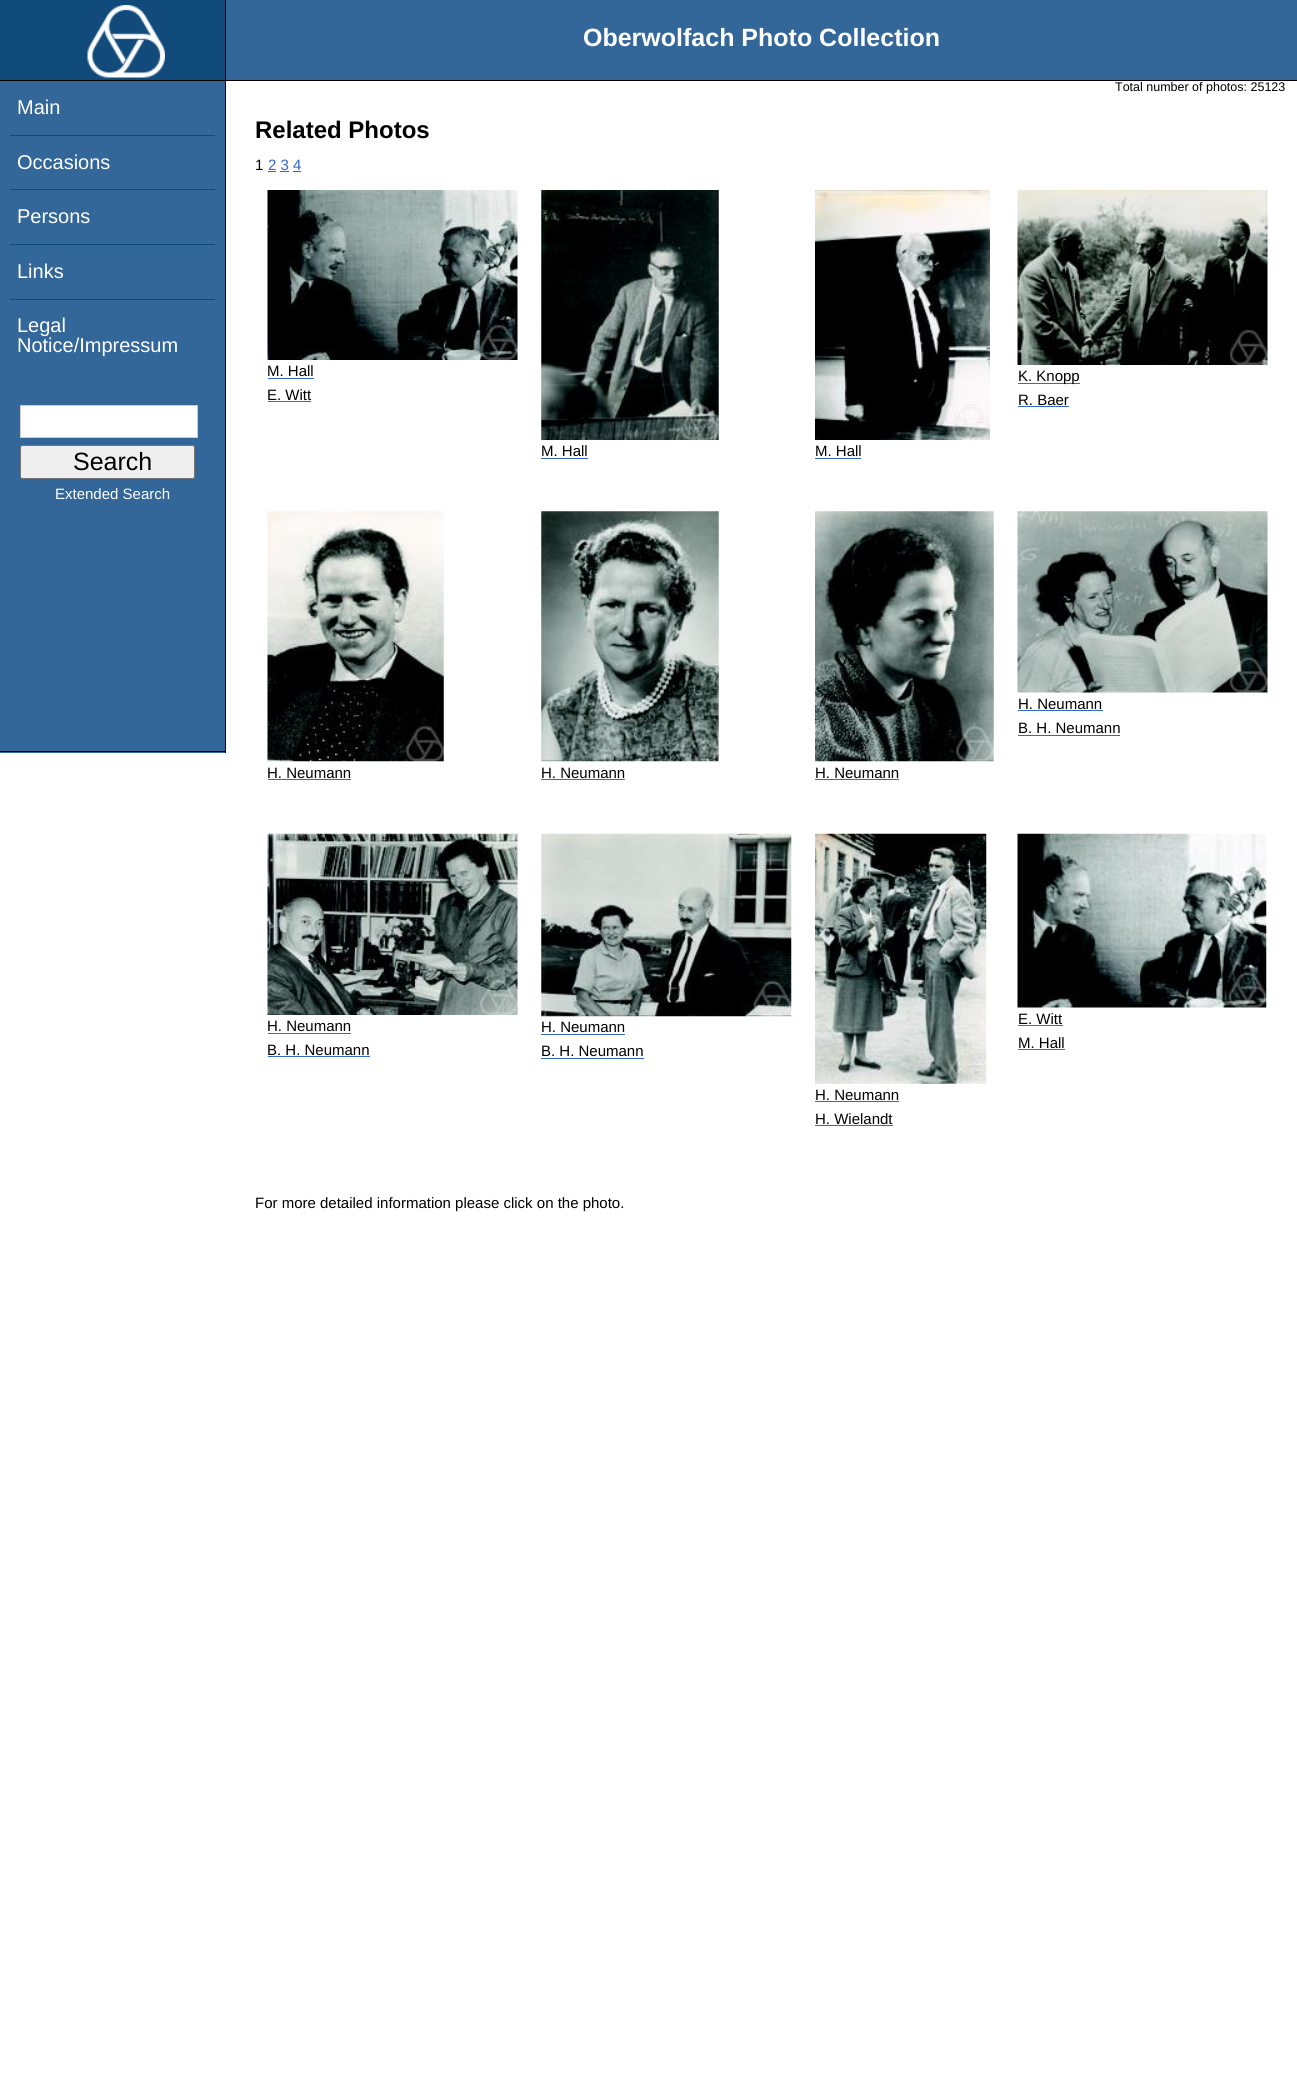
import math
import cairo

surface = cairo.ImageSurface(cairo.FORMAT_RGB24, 1297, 2076)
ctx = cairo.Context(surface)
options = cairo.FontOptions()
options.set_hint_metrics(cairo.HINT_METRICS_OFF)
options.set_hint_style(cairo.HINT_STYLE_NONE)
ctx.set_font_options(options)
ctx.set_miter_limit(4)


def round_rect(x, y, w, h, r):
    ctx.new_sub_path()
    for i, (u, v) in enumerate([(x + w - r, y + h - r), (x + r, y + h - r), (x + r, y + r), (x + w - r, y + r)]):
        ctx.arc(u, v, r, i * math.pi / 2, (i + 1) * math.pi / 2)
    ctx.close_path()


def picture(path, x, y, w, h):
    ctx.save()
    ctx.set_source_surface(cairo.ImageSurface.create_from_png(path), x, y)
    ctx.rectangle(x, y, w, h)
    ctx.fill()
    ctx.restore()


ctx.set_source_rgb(1, 1, 1)
ctx.paint()
ctx.set_source_rgb(0.2, 0.4, 0.6)
ctx.rectangle(226, 0, 1071, 80)
ctx.fill()
ctx.set_source_rgb(0, 0, 0)
ctx.rectangle(0, 80, 1297, 1)
ctx.fill()
ctx.set_source_rgb(0.063, 0.29, 0.482)
ctx.rectangle(0, 0, 225, 80)
ctx.fill()
ctx.set_source_rgb(0, 0, 0)
ctx.rectangle(225, 0, 1, 80)
ctx.fill()
picture("img1.png", 87, 5, 78, 73)
ctx.select_font_face("Liberation Sans", cairo.FONT_SLANT_NORMAL, cairo.FONT_WEIGHT_BOLD)
ctx.set_font_size(25)
ctx.set_source_rgb(1, 1, 1)
ctx.move_to(583, 46)
ctx.show_text("Oberwolfach Photo Collection")
ctx.select_font_face("Liberation Sans")
ctx.set_font_size(12.5)
ctx.set_source_rgb(0, 0, 0)
ctx.move_to(1115, 91)
ctx.show_text("Total number of photos: 25123")
ctx.set_source_rgb(0.2, 0.4, 0.6)
ctx.rectangle(0, 81, 225, 672)
ctx.fill()
ctx.set_source_rgb(0, 0, 0)
ctx.rectangle(225, 81, 1, 672)
ctx.fill()
ctx.rectangle(0, 751, 226, 1)
ctx.fill()
ctx.set_font_size(20)
ctx.set_source_rgb(1, 1, 1)
ctx.move_to(17, 114)
ctx.show_text("Main")
ctx.set_source_rgb(0.063, 0.29, 0.482)
ctx.rectangle(10, 135, 205, 1)
ctx.fill()
ctx.set_source_rgb(1, 1, 1)
ctx.move_to(17, 169)
ctx.show_text("Occasions")
ctx.set_source_rgb(0.063, 0.29, 0.482)
ctx.rectangle(10, 189, 205, 1)
ctx.fill()
ctx.set_source_rgb(1, 1, 1)
ctx.move_to(17, 223)
ctx.show_text("Persons")
ctx.set_source_rgb(0.063, 0.29, 0.482)
ctx.rectangle(10, 244, 205, 1)
ctx.fill()
ctx.set_source_rgb(1, 1, 1)
ctx.move_to(17, 278)
ctx.show_text("Links")
ctx.set_source_rgb(0.063, 0.29, 0.482)
ctx.rectangle(10, 299, 205, 1)
ctx.fill()
ctx.set_source_rgb(1, 1, 1)
ctx.move_to(17, 332)
ctx.show_text("Legal")
ctx.move_to(17, 352)
ctx.show_text("Notice/Impressum")
ctx.rectangle(20.5, 405.5, 177, 32)
ctx.fill_preserve()
ctx.set_source_rgb(0.8, 0.8, 0.8)
ctx.set_line_width(1)
ctx.stroke()
ctx.set_source_rgb(0.937, 0.937, 0.937)
round_rect(20.5, 445.5, 174, 33, 2)
ctx.fill_preserve()
ctx.set_source_rgb(0.463, 0.463, 0.463)
ctx.stroke()
ctx.set_font_size(25)
ctx.set_source_rgb(0, 0, 0)
ctx.move_to(73, 470)
ctx.show_text("Search")
ctx.set_font_size(15)
ctx.set_source_rgb(1, 1, 1)
ctx.move_to(55, 499)
ctx.show_text("Extended Search")
ctx.select_font_face("Liberation Sans", cairo.FONT_SLANT_NORMAL, cairo.FONT_WEIGHT_BOLD)
ctx.set_font_size(24)
ctx.set_source_rgb(0, 0, 0)
ctx.move_to(255, 138)
ctx.show_text("Related Photos")
ctx.select_font_face("Liberation Sans")
ctx.set_font_size(15)
ctx.move_to(255, 170)
ctx.show_text("1")
ctx.set_source_rgb(0.2, 0.4, 0.8)
ctx.move_to(268, 170)
ctx.show_text("2 3 4")
ctx.rectangle(268, 171, 8, 1)
ctx.fill()
ctx.rectangle(280, 171, 9, 1)
ctx.fill()
ctx.rectangle(293, 171, 8, 1)
ctx.fill()
picture("img2.png", 267, 190, 251, 170)
ctx.set_source_rgb(0, 0, 0)
ctx.move_to(267, 376)
ctx.show_text("M. Hall")
ctx.set_source_rgb(0.2, 0.4, 0.8)
ctx.rectangle(268, 378, 46, 1)
ctx.fill()
ctx.set_source_rgb(0, 0, 0)
ctx.move_to(267, 400)
ctx.show_text("E. Witt")
ctx.set_source_rgb(0.2, 0.4, 0.8)
ctx.rectangle(268, 401, 43, 1)
ctx.fill()
picture("img3.png", 1017, 190, 251, 175)
ctx.rectangle(1018, 383, 62, 1)
ctx.fill()
ctx.set_source_rgb(0, 0, 0)
ctx.move_to(1018, 381)
ctx.show_text("K. Knopp")
ctx.move_to(1018, 405)
ctx.show_text("R. Baer")
ctx.set_source_rgb(0.2, 0.4, 0.8)
ctx.rectangle(1018, 406, 51, 1)
ctx.fill()
picture("img4.png", 541, 190, 178, 250)
ctx.set_source_rgb(0, 0, 0)
ctx.move_to(541, 456)
ctx.show_text("M. Hall")
ctx.set_source_rgb(0.2, 0.4, 0.8)
ctx.rectangle(541, 458, 47, 1)
ctx.fill()
picture("img5.png", 815, 190, 175, 250)
ctx.set_source_rgb(0, 0, 0)
ctx.move_to(815, 456)
ctx.show_text("M. Hall")
ctx.set_source_rgb(0.2, 0.4, 0.8)
ctx.rectangle(815, 458, 46, 1)
ctx.fill()
picture("img6.png", 1017, 511, 251, 182)
ctx.set_source_rgb(0, 0, 0)
ctx.move_to(1018, 709)
ctx.show_text("H. Neumann")
ctx.set_source_rgb(0.2, 0.4, 0.8)
ctx.rectangle(1018, 710, 85, 1)
ctx.fill()
ctx.set_source_rgb(0, 0, 0)
ctx.move_to(1018, 733)
ctx.show_text("B. H. Neumann")
ctx.set_source_rgb(0.2, 0.4, 0.8)
ctx.rectangle(1018, 735, 102, 1)
ctx.fill()
picture("img7.png", 267, 511, 177, 251)
ctx.set_source_rgb(0, 0, 0)
ctx.move_to(267, 778)
ctx.show_text("H. Neumann")
ctx.set_source_rgb(0.2, 0.4, 0.8)
ctx.rectangle(268, 779, 83, 1)
ctx.fill()
picture("img8.png", 541, 511, 178, 251)
ctx.set_source_rgb(0, 0, 0)
ctx.move_to(541, 778)
ctx.show_text("H. Neumann")
ctx.set_source_rgb(0.2, 0.4, 0.8)
ctx.rectangle(541, 779, 84, 1)
ctx.fill()
picture("img9.png", 815, 511, 179, 251)
ctx.set_source_rgb(0, 0, 0)
ctx.move_to(815, 778)
ctx.show_text("H. Neumann")
ctx.set_source_rgb(0.2, 0.4, 0.8)
ctx.rectangle(815, 779, 84, 1)
ctx.fill()
picture("img10.png", 267, 833, 251, 182)
ctx.set_source_rgb(0, 0, 0)
ctx.move_to(267, 1031)
ctx.show_text("H. Neumann")
ctx.set_source_rgb(0.2, 0.4, 0.8)
ctx.rectangle(268, 1033, 83, 1)
ctx.fill()
ctx.set_source_rgb(0, 0, 0)
ctx.move_to(267, 1055)
ctx.show_text("B. H. Neumann")
ctx.set_source_rgb(0.2, 0.4, 0.8)
ctx.rectangle(268, 1056, 102, 1)
ctx.fill()
picture("img11.png", 541, 833, 251, 184)
ctx.set_source_rgb(0, 0, 0)
ctx.move_to(541, 1032)
ctx.show_text("H. Neumann")
ctx.set_source_rgb(0.2, 0.4, 0.8)
ctx.rectangle(541, 1034, 84, 1)
ctx.fill()
ctx.set_source_rgb(0, 0, 0)
ctx.move_to(541, 1056)
ctx.show_text("B. H. Neumann")
ctx.set_source_rgb(0.2, 0.4, 0.8)
ctx.rectangle(541, 1058, 103, 1)
ctx.fill()
picture("img12.png", 1017, 833, 250, 175)
ctx.set_source_rgb(0, 0, 0)
ctx.move_to(1018, 1024)
ctx.show_text("E. Witt")
ctx.set_source_rgb(0.2, 0.4, 0.8)
ctx.rectangle(1018, 1025, 45, 1)
ctx.fill()
ctx.set_source_rgb(0, 0, 0)
ctx.move_to(1018, 1048)
ctx.show_text("M. Hall")
ctx.set_source_rgb(0.2, 0.4, 0.8)
ctx.rectangle(1018, 1049, 47, 1)
ctx.fill()
picture("img13.png", 815, 833, 172, 251)
ctx.set_source_rgb(0, 0, 0)
ctx.move_to(815, 1100)
ctx.show_text("H. Neumann")
ctx.set_source_rgb(0.2, 0.4, 0.8)
ctx.rectangle(815, 1101, 84, 1)
ctx.fill()
ctx.set_source_rgb(0, 0, 0)
ctx.move_to(815, 1124)
ctx.show_text("H. Wielandt")
ctx.set_source_rgb(0.2, 0.4, 0.8)
ctx.rectangle(815, 1125, 78, 1)
ctx.fill()
ctx.set_source_rgb(0, 0, 0)
ctx.move_to(255, 1208)
ctx.show_text("For more detailed information please click on the photo.")
surface.write_to_png("page.png")
